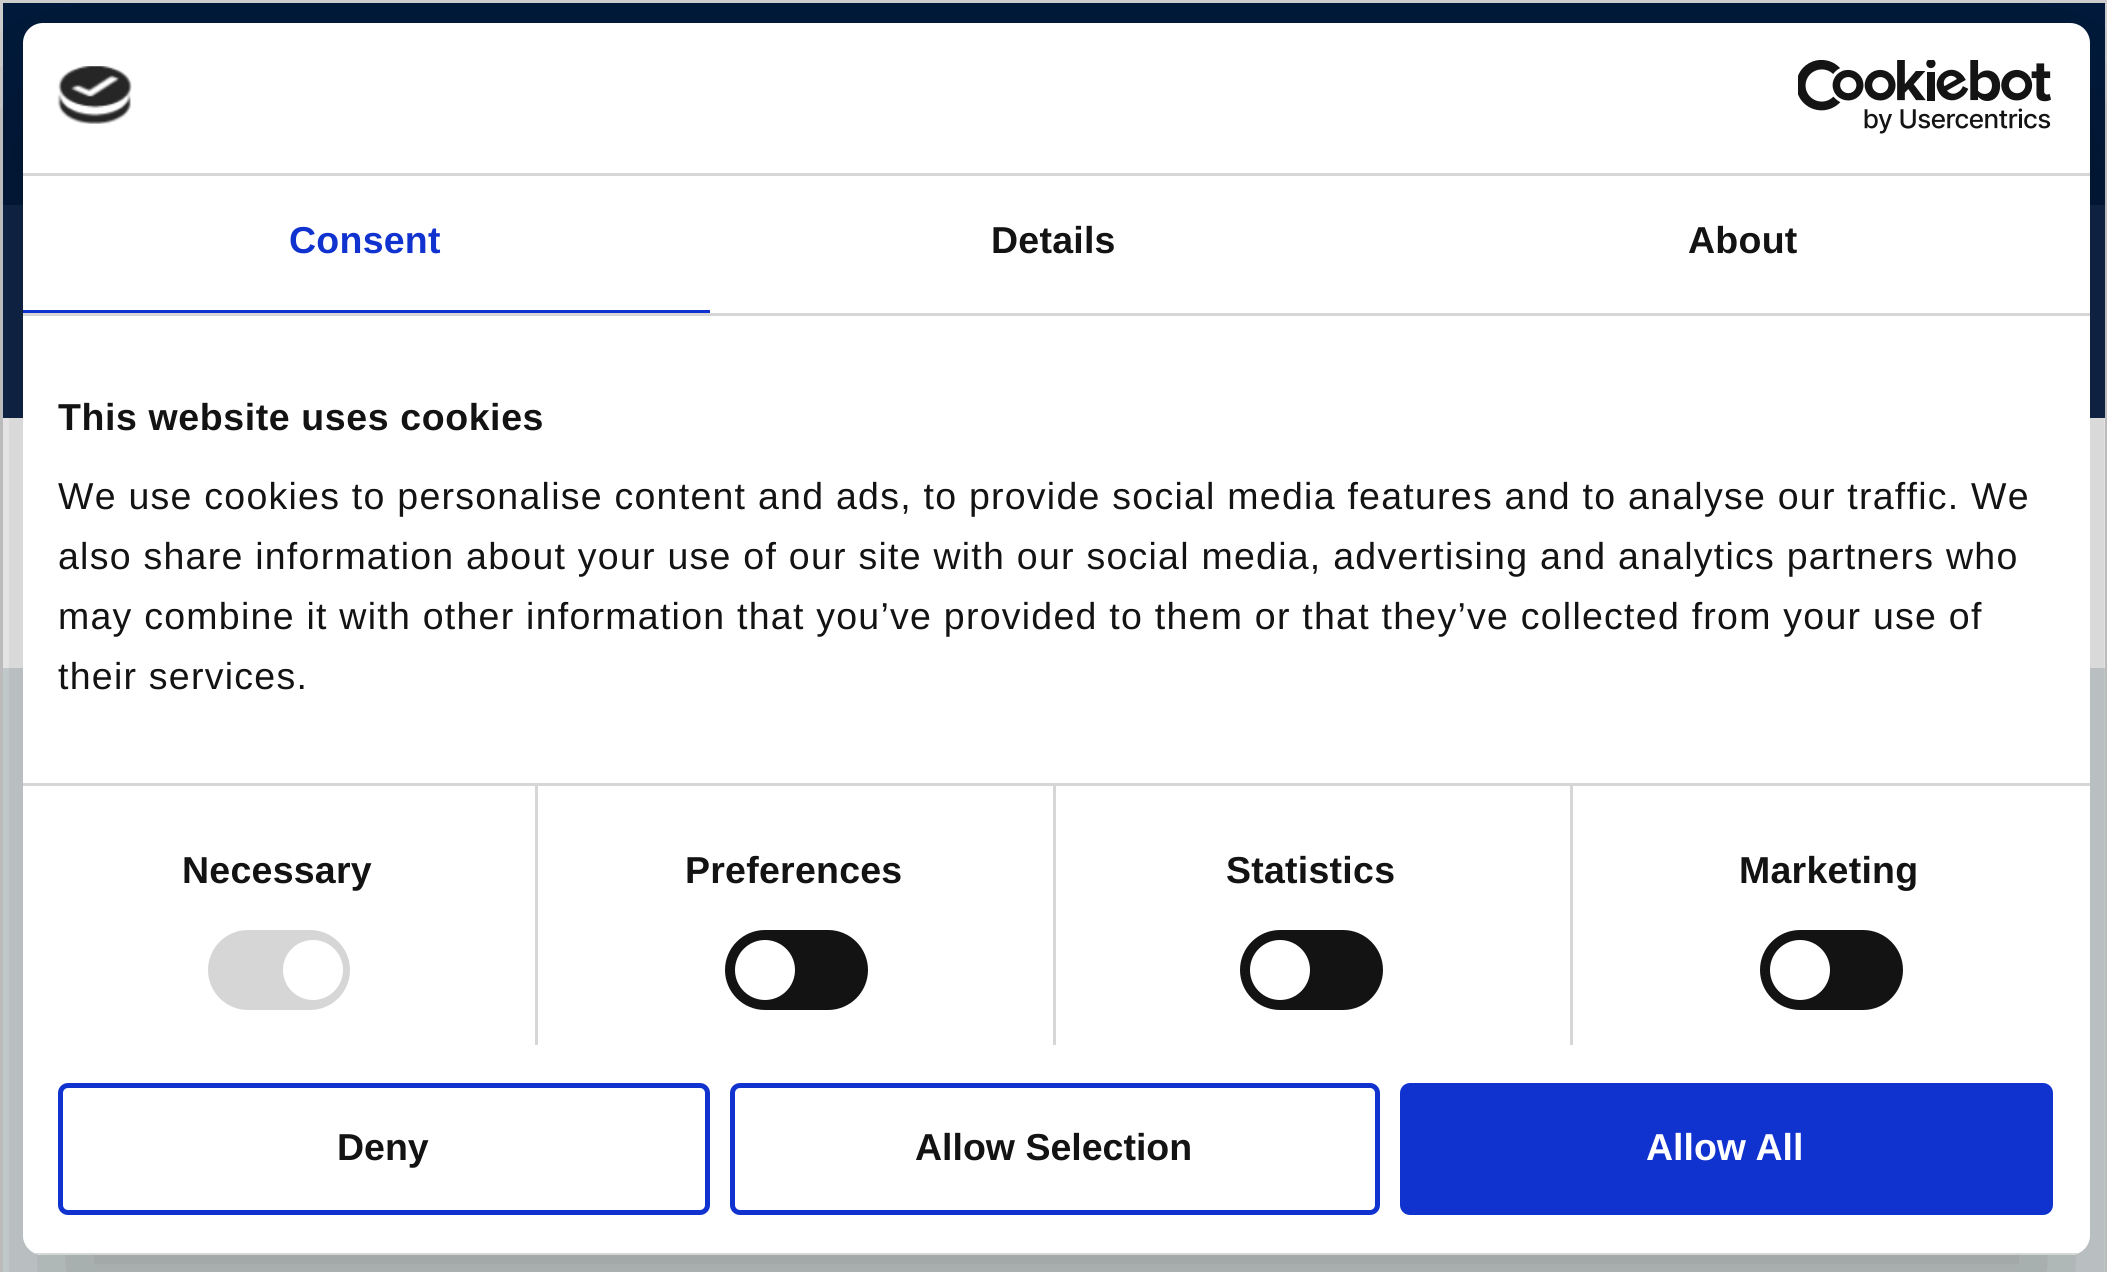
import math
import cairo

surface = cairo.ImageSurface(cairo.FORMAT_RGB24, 2107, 1272)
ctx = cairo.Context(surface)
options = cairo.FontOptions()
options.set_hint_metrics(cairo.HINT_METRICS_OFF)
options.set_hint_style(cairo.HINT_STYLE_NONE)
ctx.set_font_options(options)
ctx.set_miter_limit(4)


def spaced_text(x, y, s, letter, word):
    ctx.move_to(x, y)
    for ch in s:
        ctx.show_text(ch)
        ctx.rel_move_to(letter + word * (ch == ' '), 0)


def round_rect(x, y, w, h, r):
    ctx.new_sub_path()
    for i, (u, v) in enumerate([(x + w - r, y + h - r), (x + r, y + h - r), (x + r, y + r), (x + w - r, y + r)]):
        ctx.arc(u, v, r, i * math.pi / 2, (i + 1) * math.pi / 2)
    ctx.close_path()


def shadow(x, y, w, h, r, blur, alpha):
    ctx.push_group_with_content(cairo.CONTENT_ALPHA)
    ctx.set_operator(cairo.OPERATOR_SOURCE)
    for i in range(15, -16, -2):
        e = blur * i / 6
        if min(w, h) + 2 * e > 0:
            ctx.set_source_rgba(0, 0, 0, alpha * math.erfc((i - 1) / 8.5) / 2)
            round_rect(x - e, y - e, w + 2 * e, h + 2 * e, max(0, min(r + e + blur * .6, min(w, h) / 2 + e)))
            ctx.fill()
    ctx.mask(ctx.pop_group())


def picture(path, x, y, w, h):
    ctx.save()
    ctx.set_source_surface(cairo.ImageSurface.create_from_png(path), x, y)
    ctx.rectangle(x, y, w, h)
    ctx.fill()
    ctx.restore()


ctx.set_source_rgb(1, 1, 1)
ctx.paint()
ctx.rectangle(1.5, 1.5, 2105, 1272)
ctx.set_source_rgb(0.824, 0.824, 0.824)
ctx.set_line_width(3)
ctx.stroke()
ctx.set_source_rgb(0.063, 0.153, 0.294)
ctx.rectangle(3, 205, 2102, 213)
ctx.fill()
ctx.set_source_rgb(0.004, 0.102, 0.235)
ctx.rectangle(3, 3, 2102, 202)
ctx.fill()
ctx.set_source_rgb(0.851, 0.882, 0.886)
ctx.rectangle(3, 668, 2102, 604)
ctx.fill()
ctx.save()
ctx.set_fill_rule(cairo.FILL_RULE_EVEN_ODD)
ctx.new_path()
ctx.move_to(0, 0)
ctx.line_to(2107, 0)
ctx.line_to(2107, 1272)
ctx.line_to(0, 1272)
ctx.close_path()
ctx.move_to(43, 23)
ctx.line_to(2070, 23)
ctx.curve_to(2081, 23, 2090, 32, 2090, 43)
ctx.line_to(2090, 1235)
ctx.curve_to(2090, 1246, 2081, 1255, 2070, 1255)
ctx.line_to(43, 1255)
ctx.curve_to(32, 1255, 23, 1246, 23, 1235)
ctx.line_to(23, 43)
ctx.curve_to(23, 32, 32, 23, 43, 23)
ctx.close_path()
ctx.clip()
ctx.set_source_rgb(0, 0, 0)
shadow(23, 103, 2067, 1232, 20, 85, 0.3)
ctx.restore()
ctx.set_source_rgb(1, 1, 1)
round_rect(23, 23, 2067, 1232, 20)
ctx.fill()
ctx.set_source_rgb(0.839, 0.839, 0.839)
ctx.rectangle(23, 173, 2067, 3)
ctx.fill()
picture("img1.png", 57, 66, 75, 58)
picture("img2.png", 1798, 60, 253, 74)
ctx.rectangle(23, 313, 2067, 3)
ctx.fill()
ctx.set_source_rgb(0.063, 0.196, 0.812)
ctx.rectangle(23, 310, 687, 3)
ctx.fill()
ctx.select_font_face("Liberation Sans", cairo.FONT_SLANT_NORMAL, cairo.FONT_WEIGHT_BOLD)
ctx.set_font_size(37.5)
spaced_text(289, 253, "Consent", 0.25, 0)
ctx.set_source_rgb(0.078, 0.078, 0.078)
spaced_text(991, 253, "Details", 0.25, 0)
spaced_text(1688, 253, "About", 0.25, 0)
ctx.set_source_rgb(0.839, 0.839, 0.839)
ctx.rectangle(535, 785, 3, 260)
ctx.fill()
ctx.rectangle(1053, 785, 3, 260)
ctx.fill()
ctx.rectangle(1570, 785, 3, 260)
ctx.fill()
ctx.rectangle(23, 783, 2067, 3)
ctx.fill()
ctx.set_source_rgb(0.078, 0.078, 0.078)
spaced_text(58, 430, "This website uses cookies", 0.6, 0)
ctx.select_font_face("Liberation Sans")
spaced_text(58, 509, "We use cookies to personalise content and ads, to provide social media features and to analyse our traffic. We", 1.25, 0)
spaced_text(58, 569, "also share information about your use of our site with our social media, advertising and analytics partners who", 1.25, 0)
spaced_text(58, 629, "may combine it with other information that you’ve provided to them or that they’ve collected from your use of", 1.25, 0)
spaced_text(58, 689, "their services.", 1.25, 0)
ctx.select_font_face("Liberation Sans", cairo.FONT_SLANT_NORMAL, cairo.FONT_WEIGHT_BOLD)
spaced_text(182, 883, "Necessary", 0.25, 0)
ctx.set_source_rgb(0.839, 0.839, 0.839)
round_rect(208, 930, 142, 80, 40)
ctx.fill()
ctx.set_source_rgb(1, 1, 1)
ctx.arc(313, 970, 30, 0, 2 * math.pi)
ctx.fill()
ctx.set_source_rgb(0.078, 0.078, 0.078)
spaced_text(685, 883, "Preferences", 0.25, 0)
round_rect(725, 930, 143, 80, 40)
ctx.fill()
ctx.set_source_rgb(1, 1, 1)
ctx.arc(765, 970, 30, 0, 2 * math.pi)
ctx.fill()
ctx.set_source_rgb(0.078, 0.078, 0.078)
spaced_text(1226, 883, "Statistics", 0.25, 0)
round_rect(1240, 930, 143, 80, 40)
ctx.fill()
ctx.set_source_rgb(1, 1, 1)
ctx.arc(1280, 970, 30, 0, 2 * math.pi)
ctx.fill()
ctx.set_source_rgb(0.078, 0.078, 0.078)
spaced_text(1739, 883, "Marketing", 0.25, 0)
round_rect(1760, 930, 143, 80, 40)
ctx.fill()
ctx.set_source_rgb(1, 1, 1)
ctx.arc(1800, 970, 30, 0, 2 * math.pi)
ctx.fill()
ctx.save()
round_rect(23, 23, 2067, 1232, 20)
ctx.clip()
ctx.set_source_rgb(0.839, 0.839, 0.839)
ctx.rectangle(34, 1253, 2045, 2)
ctx.fill()
ctx.restore()
round_rect(60.5, 1085.5, 647, 127, 7.5)
ctx.set_source_rgb(0.063, 0.196, 0.812)
ctx.set_line_width(5)
ctx.stroke()
ctx.set_source_rgb(0.078, 0.078, 0.078)
ctx.move_to(337, 1160)
ctx.show_text("Deny")
round_rect(732.5, 1085.5, 645, 127, 7.5)
ctx.set_source_rgb(0.063, 0.196, 0.812)
ctx.stroke()
ctx.set_source_rgb(0.078, 0.078, 0.078)
ctx.move_to(915, 1160)
ctx.show_text("Allow Selection")
ctx.set_source_rgb(0.063, 0.196, 0.812)
round_rect(1402.5, 1085.5, 648, 127, 7.5)
ctx.fill_preserve()
ctx.stroke()
ctx.set_source_rgb(1, 1, 1)
spaced_text(1646, 1160, "Allow All", 0, -1)
surface.write_to_png("page.png")
